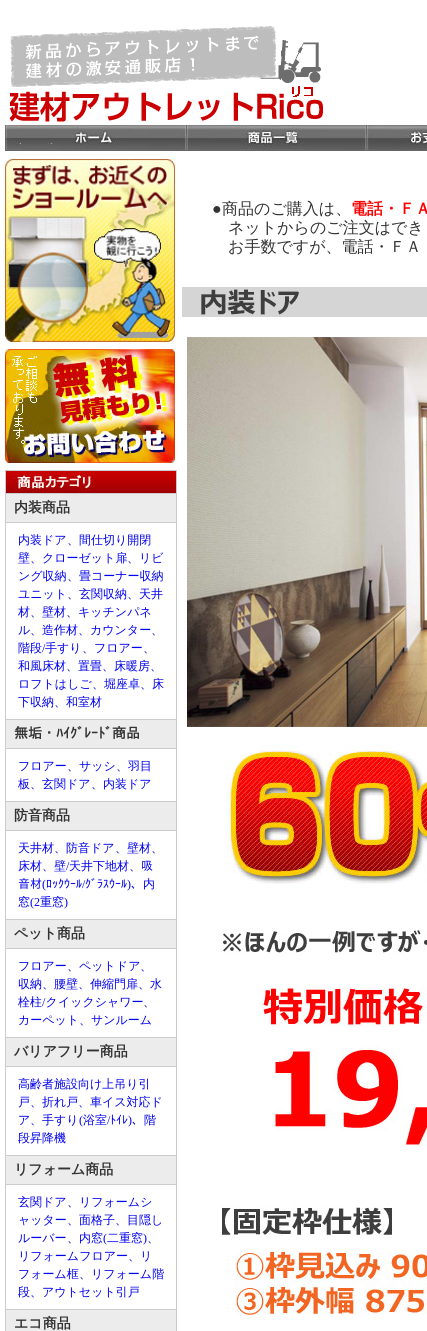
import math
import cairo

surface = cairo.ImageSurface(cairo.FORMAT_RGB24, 427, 1331)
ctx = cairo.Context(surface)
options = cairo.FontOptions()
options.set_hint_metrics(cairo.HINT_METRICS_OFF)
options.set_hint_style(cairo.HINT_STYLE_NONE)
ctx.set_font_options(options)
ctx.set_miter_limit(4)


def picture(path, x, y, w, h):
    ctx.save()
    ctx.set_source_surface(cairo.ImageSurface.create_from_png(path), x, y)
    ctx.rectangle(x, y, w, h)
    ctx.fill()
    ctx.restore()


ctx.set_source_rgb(1, 1, 1)
ctx.paint()
picture("img1.png", 9, 26, 314, 96)
picture("img2.png", 5, 125, 180, 26)
picture("img3.png", 185, 125, 180, 26)
picture("img4.png", 365, 125, 62, 26)
ctx.select_font_face("Liberation Serif")
ctx.set_font_size(16)
ctx.set_source_rgb(0.2, 0.2, 0.2)
ctx.move_to(212, 214)
ctx.show_text("●")
ctx.select_font_face("WenQuanYi Zen Hei Medium")
ctx.move_to(222, 214)
ctx.show_text("商品のご購入は、")
ctx.select_font_face("WenQuanYi Zen Hei", cairo.FONT_SLANT_NORMAL, cairo.FONT_WEIGHT_BOLD)
ctx.set_source_rgb(1, 0, 0)
ctx.move_to(351, 214)
ctx.show_text("電話・ＦＡ")
ctx.select_font_face("WenQuanYi Zen Hei Medium")
ctx.set_source_rgb(0.2, 0.2, 0.2)
ctx.move_to(228, 233)
ctx.show_text("ネットからのご注文はでき")
ctx.move_to(228, 252)
ctx.show_text("お手数ですが、電話・ＦＡ")
picture("img5.png", 182, 287, 245, 30)
picture("img6.png", 187, 337, 240, 390)
picture("img7.png", 225, 745, 202, 139)
picture("img8.png", 220, 929, 207, 386)
picture("img9.png", 5, 159, 170, 183)
picture("img10.png", 5, 349, 170, 114)
ctx.rectangle(5.5, 470.5, 171, 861)
ctx.set_source_rgb(0.8, 0.8, 0.8)
ctx.set_line_width(1)
ctx.stroke()
picture("img11.png", 6, 471, 170, 22)
ctx.set_source_rgb(0.922, 0.922, 0.922)
ctx.rectangle(6, 494, 170, 28)
ctx.fill()
ctx.set_source_rgb(0.8, 0.8, 0.8)
ctx.rectangle(6, 493, 170, 1)
ctx.fill()
ctx.rectangle(6, 522, 170, 1)
ctx.fill()
ctx.select_font_face("WenQuanYi Zen Hei", cairo.FONT_SLANT_NORMAL, cairo.FONT_WEIGHT_BOLD)
ctx.set_font_size(14)
ctx.set_source_rgb(0.2, 0.2, 0.2)
ctx.move_to(14, 512)
ctx.show_text("内装商品")
ctx.select_font_face("WenQuanYi Zen Hei Medium")
ctx.set_font_size(12)
ctx.set_source_rgb(0, 0, 0.933)
ctx.move_to(18, 544)
ctx.show_text("内装ドア")
ctx.set_source_rgb(0, 0, 0.8)
ctx.move_to(67, 544)
ctx.show_text("、")
ctx.set_source_rgb(0, 0, 0.933)
ctx.move_to(79, 544)
ctx.show_text("間仕切り開閉")
ctx.move_to(18, 562)
ctx.show_text("壁")
ctx.set_source_rgb(0, 0, 0.8)
ctx.move_to(30, 562)
ctx.show_text("、")
ctx.set_source_rgb(0, 0, 0.933)
ctx.move_to(42, 562)
ctx.show_text("クローゼット扉")
ctx.set_source_rgb(0, 0, 0.8)
ctx.move_to(127, 562)
ctx.show_text("、")
ctx.set_source_rgb(0, 0, 0.933)
ctx.move_to(139, 562)
ctx.show_text("リビ")
ctx.move_to(18, 580)
ctx.show_text("ング収納")
ctx.set_source_rgb(0, 0, 0.8)
ctx.move_to(67, 580)
ctx.show_text("、")
ctx.set_source_rgb(0, 0, 0.933)
ctx.move_to(79, 580)
ctx.show_text("畳コーナー収納")
ctx.move_to(18, 598)
ctx.show_text("ユニット")
ctx.set_source_rgb(0, 0, 0.8)
ctx.move_to(67, 598)
ctx.show_text("、")
ctx.set_source_rgb(0, 0, 0.933)
ctx.move_to(79, 598)
ctx.show_text("玄関収納")
ctx.set_source_rgb(0, 0, 0.8)
ctx.move_to(127, 598)
ctx.show_text("、")
ctx.set_source_rgb(0, 0, 0.933)
ctx.move_to(139, 598)
ctx.show_text("天井")
ctx.move_to(18, 616)
ctx.show_text("材")
ctx.set_source_rgb(0, 0, 0.8)
ctx.move_to(30, 616)
ctx.show_text("、")
ctx.set_source_rgb(0, 0, 0.933)
ctx.move_to(42, 616)
ctx.show_text("壁材")
ctx.set_source_rgb(0, 0, 0.8)
ctx.move_to(66, 616)
ctx.show_text("、")
ctx.set_source_rgb(0, 0, 0.933)
ctx.move_to(78, 616)
ctx.show_text("キッチンパネ")
ctx.move_to(18, 634)
ctx.show_text("ル")
ctx.set_source_rgb(0, 0, 0.8)
ctx.move_to(30, 634)
ctx.show_text("、")
ctx.set_source_rgb(0, 0, 0.933)
ctx.move_to(42, 634)
ctx.show_text("造作材")
ctx.set_source_rgb(0, 0, 0.8)
ctx.move_to(78, 634)
ctx.show_text("、")
ctx.set_source_rgb(0, 0, 0.933)
ctx.move_to(90, 634)
ctx.show_text("カウンター")
ctx.set_source_rgb(0, 0, 0.8)
ctx.move_to(151, 634)
ctx.show_text("、")
ctx.set_source_rgb(0, 0, 0.933)
ctx.move_to(18, 652)
ctx.show_text("階段")
ctx.select_font_face("Liberation Serif")
ctx.move_to(42, 652)
ctx.show_text("/")
ctx.select_font_face("WenQuanYi Zen Hei Medium")
ctx.move_to(45, 652)
ctx.show_text("手すり")
ctx.set_source_rgb(0, 0, 0.8)
ctx.move_to(82, 652)
ctx.show_text("、")
ctx.set_source_rgb(0, 0, 0.933)
ctx.move_to(94, 652)
ctx.show_text("フロアー")
ctx.set_source_rgb(0, 0, 0.8)
ctx.move_to(143, 652)
ctx.show_text("、")
ctx.set_source_rgb(0, 0, 0.933)
ctx.move_to(18, 670)
ctx.show_text("和風床材")
ctx.set_source_rgb(0, 0, 0.8)
ctx.move_to(66, 670)
ctx.show_text("、")
ctx.set_source_rgb(0, 0, 0.933)
ctx.move_to(78, 670)
ctx.show_text("置畳")
ctx.set_source_rgb(0, 0, 0.8)
ctx.move_to(102, 670)
ctx.show_text("、")
ctx.set_source_rgb(0, 0, 0.933)
ctx.move_to(114, 670)
ctx.show_text("床暖房")
ctx.set_source_rgb(0, 0, 0.8)
ctx.move_to(150, 670)
ctx.show_text("、")
ctx.set_source_rgb(0, 0, 0.933)
ctx.move_to(18, 688)
ctx.show_text("ロフトはしご")
ctx.set_source_rgb(0, 0, 0.8)
ctx.move_to(92, 688)
ctx.show_text("、")
ctx.set_source_rgb(0, 0, 0.933)
ctx.move_to(104, 688)
ctx.show_text("堀座卓")
ctx.set_source_rgb(0, 0, 0.8)
ctx.move_to(140, 688)
ctx.show_text("、")
ctx.set_source_rgb(0, 0, 0.933)
ctx.move_to(152, 688)
ctx.show_text("床")
ctx.move_to(18, 706)
ctx.show_text("下収納")
ctx.set_source_rgb(0, 0, 0.8)
ctx.move_to(54, 706)
ctx.show_text("、")
ctx.set_source_rgb(0, 0, 0.933)
ctx.move_to(66, 706)
ctx.show_text("和室材")
ctx.set_source_rgb(0.922, 0.922, 0.922)
ctx.rectangle(6, 720, 170, 28)
ctx.fill()
ctx.set_source_rgb(0.8, 0.8, 0.8)
ctx.rectangle(6, 719, 170, 1)
ctx.fill()
ctx.rectangle(6, 748, 170, 1)
ctx.fill()
ctx.select_font_face("IPAGothic", cairo.FONT_SLANT_NORMAL, cairo.FONT_WEIGHT_BOLD)
ctx.set_font_size(14)
ctx.set_source_rgb(0.2, 0.2, 0.2)
ctx.move_to(14, 738)
ctx.show_text("無垢・ﾊｲｸﾞﾚｰﾄﾞ商品")
ctx.select_font_face("WenQuanYi Zen Hei Medium")
ctx.set_font_size(12)
ctx.set_source_rgb(0, 0, 0.933)
ctx.move_to(18, 770)
ctx.show_text("フロアー")
ctx.set_source_rgb(0, 0, 0.8)
ctx.move_to(67, 770)
ctx.show_text("、")
ctx.set_source_rgb(0, 0, 0.933)
ctx.move_to(79, 770)
ctx.show_text("サッシ")
ctx.set_source_rgb(0, 0, 0.8)
ctx.move_to(116, 770)
ctx.show_text("、")
ctx.set_source_rgb(0, 0, 0.933)
ctx.move_to(128, 770)
ctx.show_text("羽目")
ctx.move_to(18, 788)
ctx.show_text("板")
ctx.set_source_rgb(0, 0, 0.8)
ctx.move_to(30, 788)
ctx.show_text("、")
ctx.set_source_rgb(0, 0, 0.933)
ctx.move_to(42, 788)
ctx.show_text("玄関ドア")
ctx.set_source_rgb(0, 0, 0.8)
ctx.move_to(91, 788)
ctx.show_text("、")
ctx.set_source_rgb(0, 0, 0.933)
ctx.move_to(103, 788)
ctx.show_text("内装ドア")
ctx.set_source_rgb(0.922, 0.922, 0.922)
ctx.rectangle(6, 802, 170, 28)
ctx.fill()
ctx.set_source_rgb(0.8, 0.8, 0.8)
ctx.rectangle(6, 801, 170, 1)
ctx.fill()
ctx.rectangle(6, 830, 170, 1)
ctx.fill()
ctx.select_font_face("WenQuanYi Zen Hei", cairo.FONT_SLANT_NORMAL, cairo.FONT_WEIGHT_BOLD)
ctx.set_font_size(14)
ctx.set_source_rgb(0.2, 0.2, 0.2)
ctx.move_to(14, 820)
ctx.show_text("防音商品")
ctx.select_font_face("WenQuanYi Zen Hei Medium")
ctx.set_font_size(12)
ctx.set_source_rgb(0, 0, 0.933)
ctx.move_to(18, 852)
ctx.show_text("天井材")
ctx.set_source_rgb(0, 0, 0.8)
ctx.move_to(54, 852)
ctx.show_text("、")
ctx.set_source_rgb(0, 0, 0.933)
ctx.move_to(66, 852)
ctx.show_text("防音ドア")
ctx.set_source_rgb(0, 0, 0.8)
ctx.move_to(115, 852)
ctx.show_text("、")
ctx.set_source_rgb(0, 0, 0.933)
ctx.move_to(127, 852)
ctx.show_text("壁材")
ctx.set_source_rgb(0, 0, 0.8)
ctx.move_to(151, 852)
ctx.show_text("、")
ctx.set_source_rgb(0, 0, 0.933)
ctx.move_to(18, 870)
ctx.show_text("床材、壁")
ctx.select_font_face("Liberation Serif")
ctx.move_to(66, 870)
ctx.show_text("/")
ctx.select_font_face("WenQuanYi Zen Hei Medium")
ctx.move_to(69, 870)
ctx.show_text("天井下地材")
ctx.set_source_rgb(0, 0, 0.8)
ctx.move_to(129, 870)
ctx.show_text("、")
ctx.select_font_face("IPAGothic")
ctx.set_source_rgb(0, 0, 0.933)
ctx.move_to(141, 870)
ctx.show_text("吸")
ctx.move_to(18, 888)
ctx.show_text("音材")
ctx.select_font_face("Liberation Serif")
ctx.move_to(42, 888)
ctx.show_text("(")
ctx.select_font_face("IPAGothic")
ctx.move_to(46, 888)
ctx.show_text("ﾛｯｸｳｰﾙ")
ctx.select_font_face("Liberation Serif")
ctx.move_to(82, 888)
ctx.show_text("/")
ctx.select_font_face("IPAGothic")
ctx.move_to(85, 888)
ctx.show_text("ｸﾞﾗｽｳｰﾙ")
ctx.select_font_face("Liberation Serif")
ctx.move_to(127, 888)
ctx.show_text(")")
ctx.select_font_face("IPAGothic")
ctx.set_source_rgb(0, 0, 0.8)
ctx.move_to(131, 888)
ctx.show_text("、")
ctx.select_font_face("WenQuanYi Zen Hei Medium")
ctx.set_source_rgb(0, 0, 0.933)
ctx.move_to(143, 888)
ctx.show_text("内")
ctx.move_to(18, 906)
ctx.show_text("窓")
ctx.select_font_face("Liberation Serif")
ctx.move_to(30, 906)
ctx.show_text("(2")
ctx.select_font_face("WenQuanYi Zen Hei Medium")
ctx.move_to(40, 906)
ctx.show_text("重窓")
ctx.select_font_face("Liberation Serif")
ctx.move_to(64, 906)
ctx.show_text(")")
ctx.set_source_rgb(0.922, 0.922, 0.922)
ctx.rectangle(6, 920, 170, 28)
ctx.fill()
ctx.set_source_rgb(0.8, 0.8, 0.8)
ctx.rectangle(6, 919, 170, 1)
ctx.fill()
ctx.rectangle(6, 948, 170, 1)
ctx.fill()
ctx.select_font_face("WenQuanYi Zen Hei", cairo.FONT_SLANT_NORMAL, cairo.FONT_WEIGHT_BOLD)
ctx.set_font_size(14)
ctx.set_source_rgb(0.2, 0.2, 0.2)
ctx.move_to(14, 938)
ctx.show_text("ペット商品")
ctx.select_font_face("WenQuanYi Zen Hei Medium")
ctx.set_font_size(12)
ctx.set_source_rgb(0, 0, 0.933)
ctx.move_to(18, 970)
ctx.show_text("フロアー")
ctx.set_source_rgb(0, 0, 0.8)
ctx.move_to(67, 970)
ctx.show_text("、")
ctx.set_source_rgb(0, 0, 0.933)
ctx.move_to(79, 970)
ctx.show_text("ペットドア")
ctx.set_source_rgb(0, 0, 0.8)
ctx.move_to(140, 970)
ctx.show_text("、")
ctx.set_source_rgb(0, 0, 0.933)
ctx.move_to(18, 988)
ctx.show_text("収納")
ctx.set_source_rgb(0, 0, 0.8)
ctx.move_to(42, 988)
ctx.show_text("、")
ctx.set_source_rgb(0, 0, 0.933)
ctx.move_to(54, 988)
ctx.show_text("腰壁")
ctx.set_source_rgb(0, 0, 0.8)
ctx.move_to(78, 988)
ctx.show_text("、")
ctx.set_source_rgb(0, 0, 0.933)
ctx.move_to(90, 988)
ctx.show_text("伸縮門扉")
ctx.set_source_rgb(0, 0, 0.8)
ctx.move_to(138, 988)
ctx.show_text("、")
ctx.set_source_rgb(0, 0, 0.933)
ctx.move_to(150, 988)
ctx.show_text("水")
ctx.move_to(18, 1006)
ctx.show_text("栓柱 クイックシャワー")
ctx.select_font_face("Liberation Serif")
ctx.move_to(42, 1006)
ctx.show_text("/")
ctx.select_font_face("WenQuanYi Zen Hei Medium")
ctx.set_source_rgb(0, 0, 0.8)
ctx.move_to(143, 1006)
ctx.show_text("、")
ctx.set_source_rgb(0, 0, 0.933)
ctx.move_to(18, 1024)
ctx.show_text("カーペット")
ctx.set_source_rgb(0, 0, 0.8)
ctx.move_to(79, 1024)
ctx.show_text("、")
ctx.set_source_rgb(0, 0, 0.933)
ctx.move_to(91, 1024)
ctx.show_text("サンルーム")
ctx.set_source_rgb(0.922, 0.922, 0.922)
ctx.rectangle(6, 1038, 170, 28)
ctx.fill()
ctx.set_source_rgb(0.8, 0.8, 0.8)
ctx.rectangle(6, 1037, 170, 1)
ctx.fill()
ctx.rectangle(6, 1066, 170, 1)
ctx.fill()
ctx.select_font_face("WenQuanYi Zen Hei", cairo.FONT_SLANT_NORMAL, cairo.FONT_WEIGHT_BOLD)
ctx.set_font_size(14)
ctx.set_source_rgb(0.2, 0.2, 0.2)
ctx.move_to(14, 1056)
ctx.show_text("バリアフリー商品")
ctx.select_font_face("WenQuanYi Zen Hei Medium")
ctx.set_font_size(12)
ctx.set_source_rgb(0, 0, 0.933)
ctx.move_to(18, 1088)
ctx.show_text("高齢者施設向け上吊り引")
ctx.move_to(18, 1106)
ctx.show_text("戸")
ctx.set_source_rgb(0, 0, 0.8)
ctx.move_to(30, 1106)
ctx.show_text("、")
ctx.set_source_rgb(0, 0, 0.933)
ctx.move_to(42, 1106)
ctx.show_text("折れ戸")
ctx.set_source_rgb(0, 0, 0.8)
ctx.move_to(78, 1106)
ctx.show_text("、")
ctx.set_source_rgb(0, 0, 0.933)
ctx.move_to(90, 1106)
ctx.show_text("車イス対応ド")
ctx.move_to(18, 1124)
ctx.show_text("ア")
ctx.set_source_rgb(0, 0, 0.8)
ctx.move_to(30, 1124)
ctx.show_text("、")
ctx.set_source_rgb(0, 0, 0.933)
ctx.move_to(42, 1124)
ctx.show_text("手すり")
ctx.select_font_face("Liberation Serif")
ctx.move_to(79, 1124)
ctx.show_text("(")
ctx.select_font_face("WenQuanYi Zen Hei Medium")
ctx.move_to(83, 1124)
ctx.show_text("浴室")
ctx.select_font_face("Liberation Serif")
ctx.move_to(107, 1124)
ctx.show_text("/")
ctx.select_font_face("IPAGothic")
ctx.move_to(110, 1124)
ctx.show_text("ﾄｲﾚ")
ctx.select_font_face("Liberation Serif")
ctx.move_to(128, 1124)
ctx.show_text(")")
ctx.select_font_face("IPAGothic")
ctx.set_source_rgb(0, 0, 0.8)
ctx.move_to(132, 1124)
ctx.show_text("、")
ctx.select_font_face("WenQuanYi Zen Hei Medium")
ctx.set_source_rgb(0, 0, 0.933)
ctx.move_to(144, 1124)
ctx.show_text("階")
ctx.move_to(18, 1142)
ctx.show_text("段昇降機")
ctx.set_source_rgb(0.922, 0.922, 0.922)
ctx.rectangle(6, 1156, 170, 28)
ctx.fill()
ctx.set_source_rgb(0.8, 0.8, 0.8)
ctx.rectangle(6, 1155, 170, 1)
ctx.fill()
ctx.rectangle(6, 1184, 170, 1)
ctx.fill()
ctx.select_font_face("WenQuanYi Zen Hei", cairo.FONT_SLANT_NORMAL, cairo.FONT_WEIGHT_BOLD)
ctx.set_font_size(14)
ctx.set_source_rgb(0.2, 0.2, 0.2)
ctx.move_to(14, 1174)
ctx.show_text("リフォーム商品")
ctx.select_font_face("WenQuanYi Zen Hei Medium")
ctx.set_font_size(12)
ctx.set_source_rgb(0, 0, 0.933)
ctx.move_to(18, 1206)
ctx.show_text("玄関ドア")
ctx.set_source_rgb(0, 0, 0.8)
ctx.move_to(67, 1206)
ctx.show_text("、")
ctx.set_source_rgb(0, 0, 0.933)
ctx.move_to(79, 1206)
ctx.show_text("リフォームシ")
ctx.move_to(18, 1224)
ctx.show_text("ャッター")
ctx.set_source_rgb(0, 0, 0.8)
ctx.move_to(67, 1224)
ctx.show_text("、")
ctx.set_source_rgb(0, 0, 0.933)
ctx.move_to(79, 1224)
ctx.show_text("面格子")
ctx.set_source_rgb(0, 0, 0.8)
ctx.move_to(115, 1224)
ctx.show_text("、")
ctx.set_source_rgb(0, 0, 0.933)
ctx.move_to(127, 1224)
ctx.show_text("目隠し")
ctx.move_to(18, 1242)
ctx.show_text("ルーバー")
ctx.set_source_rgb(0, 0, 0.8)
ctx.move_to(67, 1242)
ctx.show_text("、")
ctx.set_source_rgb(0, 0, 0.933)
ctx.move_to(79, 1242)
ctx.show_text("内窓")
ctx.select_font_face("Liberation Serif")
ctx.move_to(103, 1242)
ctx.show_text("(")
ctx.select_font_face("WenQuanYi Zen Hei Medium")
ctx.move_to(107, 1242)
ctx.show_text("二重窓")
ctx.select_font_face("Liberation Serif")
ctx.move_to(143, 1242)
ctx.show_text(")")
ctx.select_font_face("WenQuanYi Zen Hei Medium")
ctx.set_source_rgb(0, 0, 0.8)
ctx.move_to(147, 1242)
ctx.show_text("、")
ctx.set_source_rgb(0, 0, 0.933)
ctx.move_to(18, 1260)
ctx.show_text("リフォームフロアー")
ctx.set_source_rgb(0, 0, 0.8)
ctx.move_to(128, 1260)
ctx.show_text("、")
ctx.set_source_rgb(0, 0, 0.933)
ctx.move_to(140, 1260)
ctx.show_text("リ")
ctx.move_to(18, 1278)
ctx.show_text("フォーム框")
ctx.set_source_rgb(0, 0, 0.8)
ctx.move_to(79, 1278)
ctx.show_text("、")
ctx.set_source_rgb(0, 0, 0.933)
ctx.move_to(91, 1278)
ctx.show_text("リフォーム階")
ctx.move_to(18, 1296)
ctx.show_text("段")
ctx.set_source_rgb(0, 0, 0.8)
ctx.move_to(30, 1296)
ctx.show_text("、")
ctx.set_source_rgb(0, 0, 0.933)
ctx.move_to(42, 1296)
ctx.show_text("アウトセット引戸")
ctx.set_source_rgb(0.922, 0.922, 0.922)
ctx.rectangle(6, 1310, 170, 21)
ctx.fill()
ctx.set_source_rgb(0.8, 0.8, 0.8)
ctx.rectangle(6, 1309, 170, 1)
ctx.fill()
ctx.select_font_face("WenQuanYi Zen Hei", cairo.FONT_SLANT_NORMAL, cairo.FONT_WEIGHT_BOLD)
ctx.set_font_size(14)
ctx.set_source_rgb(0.2, 0.2, 0.2)
ctx.move_to(14, 1328)
ctx.show_text("エコ商品")
surface.write_to_png("page.png")
